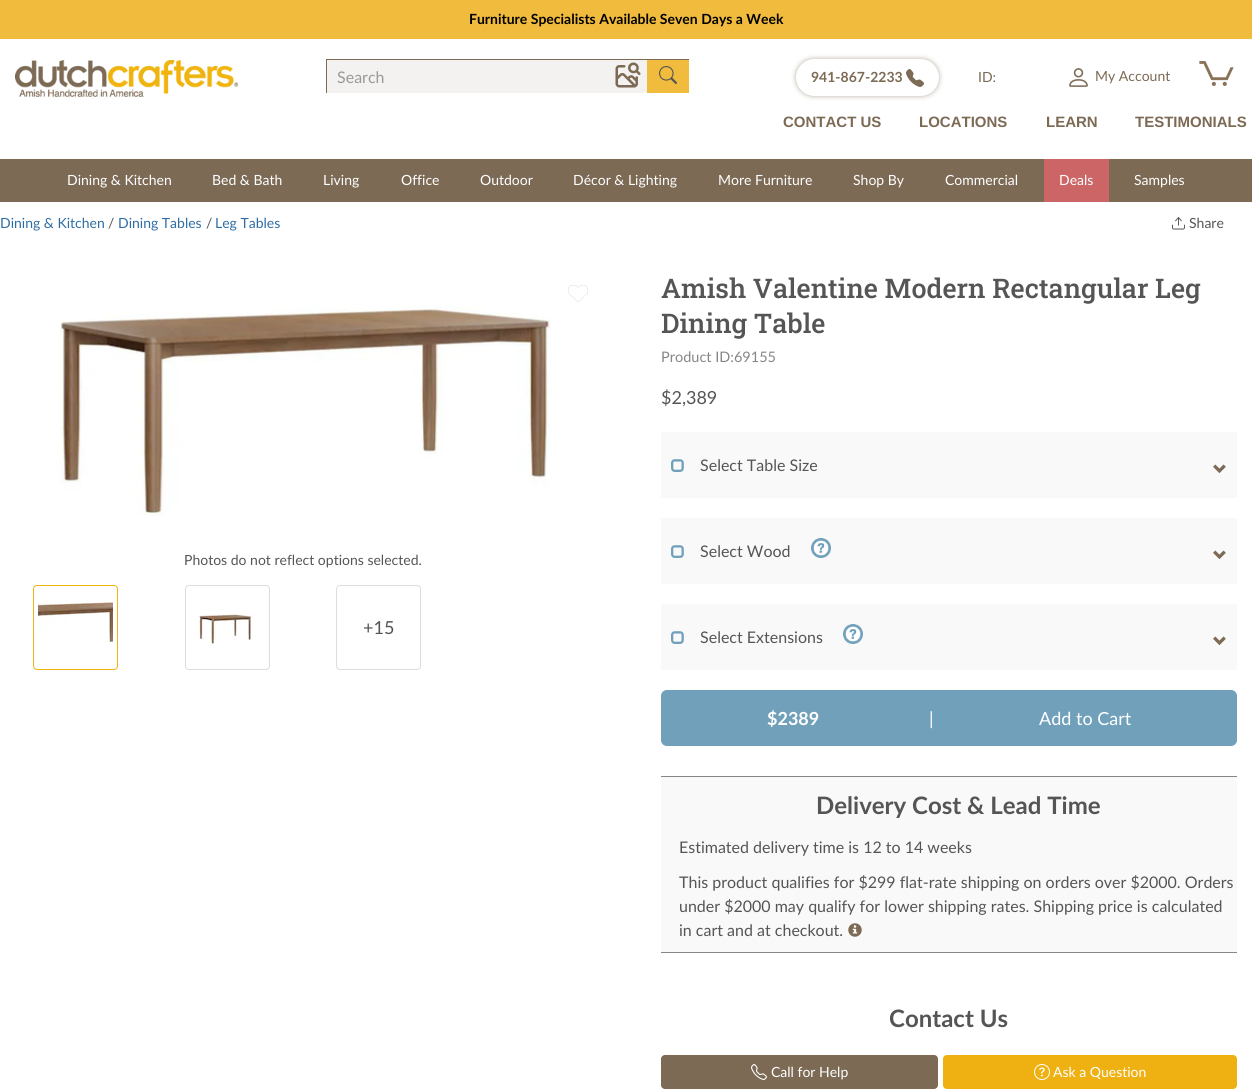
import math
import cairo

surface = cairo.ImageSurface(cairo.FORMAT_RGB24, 1252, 1089)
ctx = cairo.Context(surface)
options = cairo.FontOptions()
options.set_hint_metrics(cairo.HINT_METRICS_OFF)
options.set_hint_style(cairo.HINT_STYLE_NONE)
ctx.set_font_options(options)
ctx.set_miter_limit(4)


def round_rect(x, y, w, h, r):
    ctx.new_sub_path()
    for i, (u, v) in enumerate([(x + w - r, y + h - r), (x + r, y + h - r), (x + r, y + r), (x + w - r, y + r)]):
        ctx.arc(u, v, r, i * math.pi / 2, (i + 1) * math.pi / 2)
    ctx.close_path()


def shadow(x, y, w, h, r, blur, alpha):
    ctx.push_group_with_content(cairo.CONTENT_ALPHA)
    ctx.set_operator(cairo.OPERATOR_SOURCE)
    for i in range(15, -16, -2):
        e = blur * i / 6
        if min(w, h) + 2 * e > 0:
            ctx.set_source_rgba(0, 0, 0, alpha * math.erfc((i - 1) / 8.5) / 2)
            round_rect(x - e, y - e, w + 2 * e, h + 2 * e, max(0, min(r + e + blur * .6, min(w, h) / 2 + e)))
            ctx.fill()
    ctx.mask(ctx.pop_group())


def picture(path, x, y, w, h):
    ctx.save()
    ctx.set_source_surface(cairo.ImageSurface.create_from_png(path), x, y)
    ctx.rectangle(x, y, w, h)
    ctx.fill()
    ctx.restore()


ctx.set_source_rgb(1, 1, 1)
ctx.paint()
ctx.set_source_rgb(0.945, 0.733, 0.239)
ctx.rectangle(0, 0, 1252, 39)
ctx.fill()
ctx.select_font_face("Lato", cairo.FONT_SLANT_NORMAL, cairo.FONT_WEIGHT_BOLD)
ctx.set_font_size(14)
ctx.set_source_rgb(0, 0, 0)
ctx.move_to(469, 24)
ctx.show_text("Furniture Specialists Available Seven Days a Week")
picture("img1.png", 15, 60, 223, 37)
ctx.set_source_rgb(0.945, 0.733, 0.239)
ctx.rectangle(647, 60, 42, 33)
ctx.fill()
ctx.set_source_rgb(0.486, 0.416, 0.333)
ctx.rectangle(608, 59, 81, 1)
ctx.fill()
picture("img2.png", 659, 66, 18, 18)
ctx.set_source_rgb(0.953, 0.949, 0.945)
ctx.rectangle(327, 60, 320, 33)
ctx.fill()
ctx.set_source_rgb(0.486, 0.416, 0.333)
ctx.rectangle(326, 59, 282, 1)
ctx.fill()
ctx.rectangle(326, 59, 1, 34)
ctx.fill()
ctx.select_font_face("Lato")
ctx.set_font_size(16)
ctx.set_source_rgb(0.6, 0.6, 0.6)
ctx.move_to(337, 83)
ctx.show_text("Search")
picture("img3.png", 615, 62, 26, 26)
ctx.set_source_rgb(0.718, 0.678, 0.631)
shadow(796, 59, 143, 37, 18.5, 2.5, 1)
ctx.set_source_rgb(1, 1, 1)
round_rect(796, 59, 143, 37, 18.5)
ctx.fill()
ctx.select_font_face("Lato", cairo.FONT_SLANT_NORMAL, cairo.FONT_WEIGHT_BOLD)
ctx.set_font_size(14)
ctx.set_source_rgb(0.486, 0.416, 0.333)
ctx.move_to(811, 82)
ctx.show_text("941-867-2233")
picture("img4.png", 906, 69, 18, 18)
ctx.select_font_face("Lato")
ctx.move_to(978, 82)
ctx.show_text("ID:")
picture("img5.png", 1069, 68, 19, 19)
ctx.move_to(1095, 81)
ctx.show_text("My Account")
picture("img6.png", 1199, 61, 35, 25)
ctx.select_font_face("Liberation Sans", cairo.FONT_SLANT_NORMAL, cairo.FONT_WEIGHT_BOLD)
ctx.set_font_size(15)
ctx.move_to(783, 127)
ctx.show_text("CONTACT US")
ctx.move_to(919, 127)
ctx.show_text("LOCATIONS")
ctx.move_to(1046, 127)
ctx.show_text("LEARN")
ctx.move_to(1135, 127)
ctx.show_text("TESTIMONIALS")
ctx.rectangle(0, 159, 1252, 43)
ctx.fill()
ctx.select_font_face("Lato")
ctx.set_font_size(14)
ctx.set_source_rgb(1, 1, 1)
ctx.move_to(67, 185)
ctx.show_text("Dining & Kitchen")
ctx.move_to(212, 185)
ctx.show_text("Bed & Bath")
ctx.move_to(323, 185)
ctx.show_text("Living")
ctx.move_to(401, 185)
ctx.show_text("Office")
ctx.move_to(480, 185)
ctx.show_text("Outdoor")
ctx.move_to(573, 185)
ctx.show_text("Décor & Lighting")
ctx.move_to(718, 185)
ctx.show_text("More Furniture")
ctx.move_to(853, 185)
ctx.show_text("Shop By")
ctx.move_to(945, 185)
ctx.show_text("Commercial")
ctx.set_source_rgb(0.8, 0.4, 0.4)
ctx.rectangle(1044, 159, 65, 43)
ctx.fill()
ctx.set_source_rgb(1, 1, 1)
ctx.move_to(1059, 185)
ctx.show_text("Deals")
ctx.move_to(1134, 185)
ctx.show_text("Samples")
ctx.set_source_rgb(0.18, 0.427, 0.643)
ctx.move_to(0, 228)
ctx.show_text("Dining & Kitchen")
ctx.set_source_rgb(0.333, 0.333, 0.333)
ctx.move_to(108, 228)
ctx.show_text("/")
ctx.set_source_rgb(0.18, 0.427, 0.643)
ctx.move_to(118, 228)
ctx.show_text("Dining Tables")
ctx.set_source_rgb(0.333, 0.333, 0.333)
ctx.move_to(206, 228)
ctx.show_text("/")
ctx.set_source_rgb(0.18, 0.427, 0.643)
ctx.move_to(215, 228)
ctx.show_text("Leg Tables")
picture("img7.png", 1172, 217, 13, 13)
ctx.set_source_rgb(0.333, 0.333, 0.333)
ctx.move_to(1189, 228)
ctx.show_text("Share")
picture("img8.png", 567, 285, 21, 17)
picture("img9.png", 58, 306, 493, 209)
ctx.move_to(184, 565)
ctx.show_text("Photos do not reflect options selected.")
round_rect(33.5, 585.5, 84, 84, 3.5)
ctx.set_source_rgb(0.941, 0.702, 0.063)
ctx.set_line_width(1)
ctx.stroke()
picture("img10.png", 38, 602, 75, 41)
round_rect(185.5, 585.5, 84, 84, 3.5)
ctx.set_source_rgb(0.867, 0.867, 0.867)
ctx.stroke()
picture("img11.png", 198, 614, 56, 32)
round_rect(336.5, 585.5, 84, 84, 3.5)
ctx.stroke()
ctx.set_font_size(18)
ctx.set_source_rgb(0.333, 0.333, 0.333)
ctx.move_to(363, 634)
ctx.show_text("+15")
ctx.select_font_face("Roboto Slab Medium")
ctx.set_font_size(27)
ctx.move_to(661, 298)
ctx.show_text("Amish Valentine Modern Rectangular Leg")
ctx.move_to(661, 333)
ctx.show_text("Dining Table")
ctx.select_font_face("Lato")
ctx.set_font_size(14.5)
ctx.set_source_rgb(0.525, 0.525, 0.525)
ctx.move_to(661, 362)
ctx.show_text("Product ID:69155")
ctx.set_font_size(18)
ctx.set_source_rgb(0.333, 0.333, 0.333)
ctx.move_to(661, 404)
ctx.show_text("$2,389")
ctx.set_source_rgb(0.973, 0.973, 0.973)
ctx.rectangle(661, 432, 576, 66)
ctx.fill()
picture("img12.png", 671, 459, 13, 13)
ctx.set_font_size(16)
ctx.set_source_rgb(0.333, 0.333, 0.333)
ctx.move_to(700, 471)
ctx.show_text("Select Table Size")
picture("img13.png", 1213, 464, 13, 10)
ctx.set_source_rgb(0.973, 0.973, 0.973)
ctx.rectangle(661, 518, 576, 66)
ctx.fill()
picture("img12.png", 671, 545, 13, 13)
ctx.set_source_rgb(0.333, 0.333, 0.333)
ctx.move_to(700, 557)
ctx.show_text("Select Wood")
picture("img14.png", 811, 538, 20, 20)
picture("img13.png", 1213, 550, 13, 10)
ctx.set_source_rgb(0.973, 0.973, 0.973)
ctx.rectangle(661, 604, 576, 66)
ctx.fill()
picture("img12.png", 671, 631, 13, 13)
ctx.set_source_rgb(0.333, 0.333, 0.333)
ctx.move_to(700, 643)
ctx.show_text("Select Extensions")
picture("img14.png", 843, 624, 20, 20)
picture("img13.png", 1213, 636, 13, 10)
ctx.set_source_rgb(0.443, 0.627, 0.733)
round_rect(661.5, 690.5, 575, 55, 5.5)
ctx.fill_preserve()
ctx.stroke()
ctx.select_font_face("Lato", cairo.FONT_SLANT_NORMAL, cairo.FONT_WEIGHT_BOLD)
ctx.set_font_size(18)
ctx.set_source_rgb(1, 1, 1)
ctx.move_to(767, 725)
ctx.show_text("$2389")
ctx.select_font_face("Lato")
ctx.move_to(929, 725)
ctx.show_text("|")
ctx.move_to(1039, 725)
ctx.show_text("Add to Cart")
ctx.set_source_rgb(0.973, 0.973, 0.973)
ctx.rectangle(661, 777, 576, 175)
ctx.fill()
ctx.set_source_rgb(0.525, 0.525, 0.525)
ctx.rectangle(661, 776, 576, 1)
ctx.fill()
ctx.rectangle(661, 952, 576, 1)
ctx.fill()
ctx.select_font_face("Lato", cairo.FONT_SLANT_NORMAL, cairo.FONT_WEIGHT_BOLD)
ctx.set_font_size(24)
ctx.set_source_rgb(0.333, 0.333, 0.333)
ctx.move_to(816, 814)
ctx.show_text("Delivery Cost & Lead Time")
ctx.select_font_face("Lato")
ctx.set_font_size(16)
ctx.move_to(679, 853)
ctx.show_text("Estimated delivery time is 12 to 14 weeks")
ctx.move_to(679, 888)
ctx.show_text("This product qualifies for $299 flat-rate shipping on orders over $2000. Orders")
ctx.move_to(679, 912)
ctx.show_text("under $2000 may qualify for lower shipping rates. Shipping price is calculated")
ctx.move_to(679, 936)
ctx.show_text("in cart and at checkout.")
picture("img15.png", 848, 923, 14, 14)
ctx.select_font_face("Lato", cairo.FONT_SLANT_NORMAL, cairo.FONT_WEIGHT_BOLD)
ctx.set_font_size(24)
ctx.move_to(889, 1027)
ctx.show_text("Contact Us")
ctx.set_source_rgb(0.486, 0.416, 0.333)
round_rect(661, 1055, 277, 34, 4)
ctx.fill()
picture("img16.png", 751, 1064, 16, 16)
ctx.select_font_face("Lato")
ctx.set_font_size(14)
ctx.set_source_rgb(1, 1, 1)
ctx.move_to(771, 1077)
ctx.show_text("Call for Help")
ctx.set_source_rgb(0.933, 0.694, 0.067)
round_rect(943.5, 1055.5, 293, 33, 3.5)
ctx.fill_preserve()
ctx.stroke()
picture("img17.png", 1034, 1064, 16, 16)
ctx.set_source_rgb(1, 1, 1)
ctx.move_to(1053, 1077)
ctx.show_text("Ask a Question")
surface.write_to_png("page.png")
